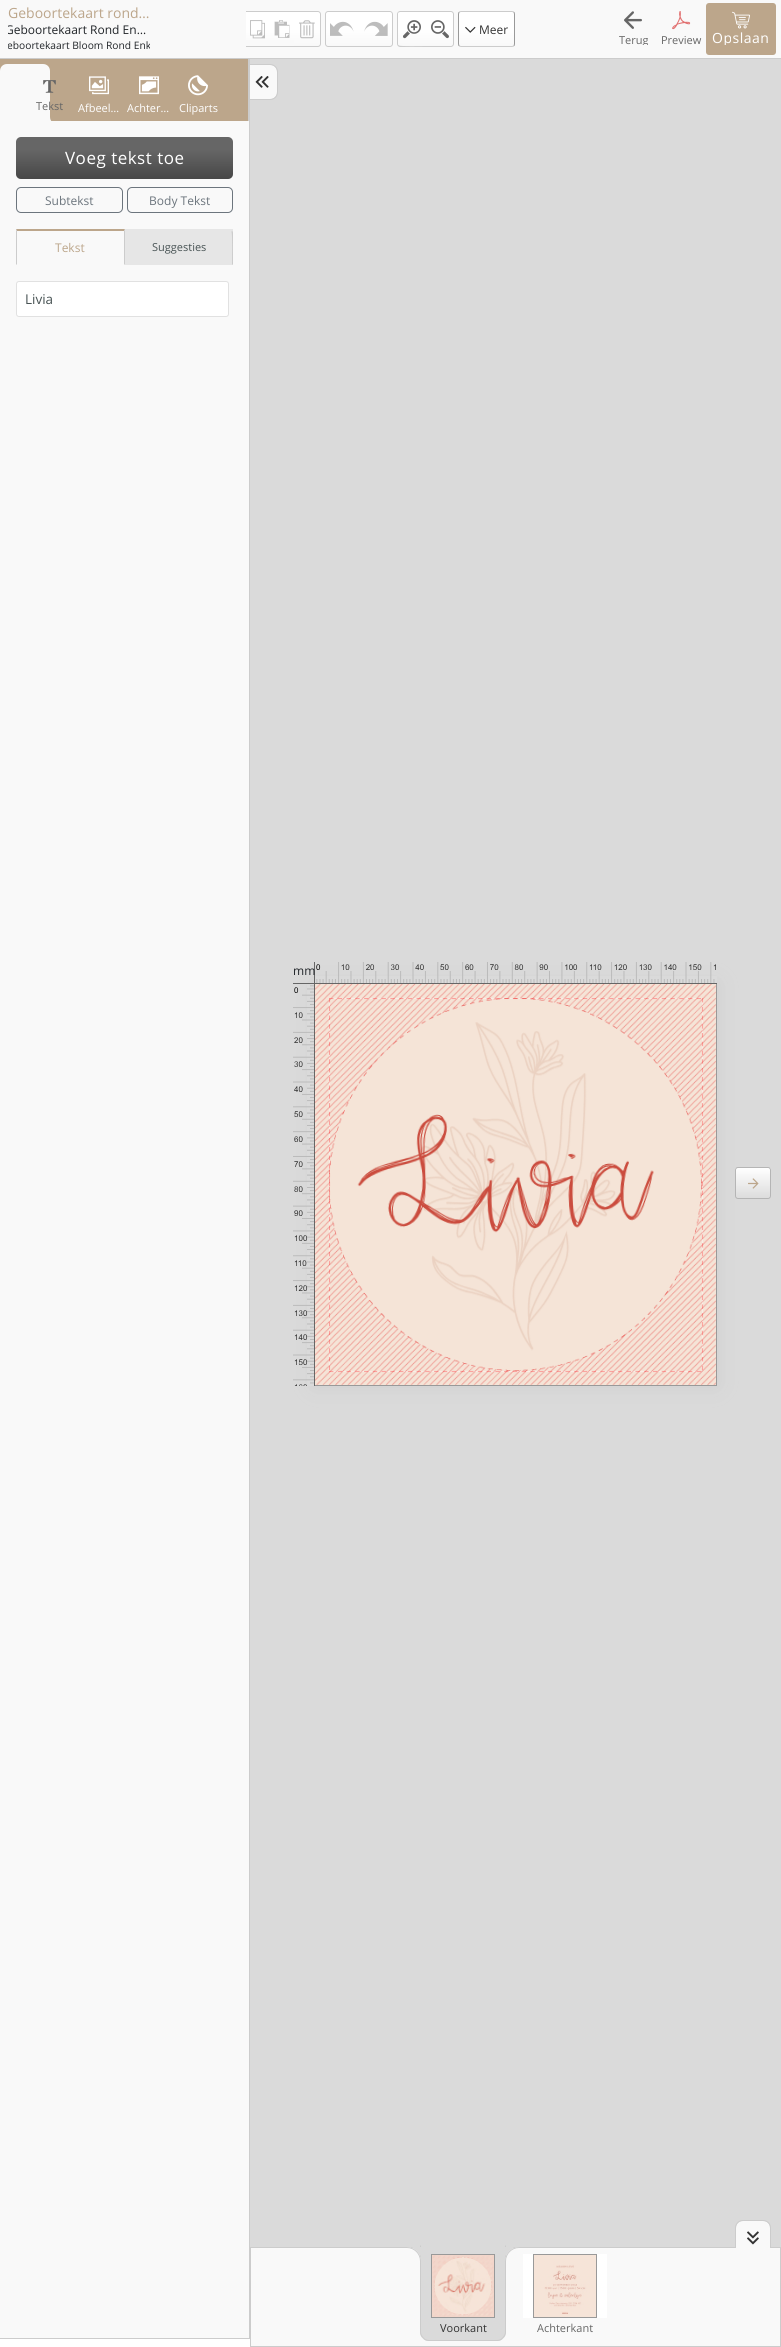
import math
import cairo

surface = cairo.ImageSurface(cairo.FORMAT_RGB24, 781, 2347)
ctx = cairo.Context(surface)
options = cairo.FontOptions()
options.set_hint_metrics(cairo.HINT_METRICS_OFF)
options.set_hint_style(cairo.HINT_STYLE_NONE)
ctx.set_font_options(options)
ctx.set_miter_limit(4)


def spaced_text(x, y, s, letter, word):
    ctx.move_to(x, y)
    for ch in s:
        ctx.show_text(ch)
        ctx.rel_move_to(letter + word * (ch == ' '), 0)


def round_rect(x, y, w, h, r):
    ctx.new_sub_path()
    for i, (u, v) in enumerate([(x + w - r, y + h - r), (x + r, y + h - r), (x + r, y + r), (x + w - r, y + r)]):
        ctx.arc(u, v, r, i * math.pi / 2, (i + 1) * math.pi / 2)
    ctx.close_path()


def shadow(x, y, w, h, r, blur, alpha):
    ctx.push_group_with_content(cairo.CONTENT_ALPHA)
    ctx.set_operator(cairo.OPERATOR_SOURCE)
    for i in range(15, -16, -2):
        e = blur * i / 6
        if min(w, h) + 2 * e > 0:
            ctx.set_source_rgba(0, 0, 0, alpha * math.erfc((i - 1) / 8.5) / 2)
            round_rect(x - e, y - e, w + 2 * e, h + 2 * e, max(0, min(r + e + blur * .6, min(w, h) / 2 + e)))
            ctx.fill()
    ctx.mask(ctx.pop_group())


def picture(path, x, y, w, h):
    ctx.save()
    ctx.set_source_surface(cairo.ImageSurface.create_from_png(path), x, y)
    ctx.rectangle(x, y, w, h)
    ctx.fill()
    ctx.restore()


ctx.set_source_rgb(1, 1, 1)
ctx.paint()
ctx.set_source_rgb(0.973, 0.973, 0.973)
ctx.rectangle(0, 0, 781, 58)
ctx.fill()
ctx.set_source_rgb(0.8, 0.8, 0.8)
ctx.rectangle(0, 58, 781, 1)
ctx.fill()
ctx.select_font_face("Open Sans")
ctx.set_font_size(14)
ctx.set_source_rgb(0.737, 0.651, 0.545)
ctx.move_to(8, 18)
ctx.show_text("Geboortekaart rond…")
ctx.save()
ctx.rectangle(8, 21, 142, 17)
ctx.clip()
ctx.set_font_size(12)
ctx.set_source_rgb(0.129, 0.145, 0.161)
ctx.move_to(5, 34)
ctx.show_text("Geboortekaart Rond En…")
ctx.restore()
ctx.save()
ctx.rectangle(8, 38, 142, 14)
ctx.clip()
ctx.set_font_size(10.25)
ctx.set_source_rgb(0.129, 0.145, 0.161)
ctx.move_to(7, 49)
ctx.show_text("eboortekaart Bloom Rond Enk")
ctx.restore()
gradient = cairo.LinearGradient(258, 46, 258, 12)
gradient.add_color_stop_rgba(0, 0.973, 0.973, 0.973, 1)
gradient.add_color_stop_rgba(0.5, 1, 1, 1, 1)
ctx.set_source(gradient)
ctx.rectangle(246, 12, 24, 28)
ctx.fill()
ctx.set_source_rgb(0.8, 0.8, 0.8)
ctx.rectangle(246, 11, 48, 1)
ctx.fill()
ctx.rectangle(246, 46, 48, 1)
ctx.fill()
picture("img1.png", 250, 20, 15, 19)
ctx.save()
ctx.new_path()
ctx.move_to(294, 11)
ctx.line_to(318, 11)
ctx.curve_to(319.5, 11, 321, 12.5, 321, 14)
ctx.line_to(321, 44)
ctx.curve_to(321, 45.5, 319.5, 47, 318, 47)
ctx.line_to(294, 47)
ctx.close_path()
ctx.clip()
gradient = cairo.LinearGradient(307, 46, 307, 12)
gradient.add_color_stop_rgba(0, 0.973, 0.973, 0.973, 1)
gradient.add_color_stop_rgba(0.5, 1, 1, 1, 1)
ctx.set_source(gradient)
ctx.rectangle(294, 12, 27, 34)
ctx.fill()
ctx.restore()
ctx.set_fill_rule(cairo.FILL_RULE_EVEN_ODD)
ctx.new_path()
ctx.move_to(294, 11)
ctx.line_to(318, 11)
ctx.curve_to(319.5, 11, 321, 12.5, 321, 14)
ctx.line_to(321, 44)
ctx.curve_to(321, 45.5, 319.5, 47, 318, 47)
ctx.line_to(294, 47)
ctx.close_path()
ctx.move_to(294, 12)
ctx.line_to(318, 12)
ctx.curve_to(319, 12, 320, 13, 320, 14)
ctx.line_to(320, 44)
ctx.curve_to(320, 45, 319, 46, 318, 46)
ctx.line_to(294, 46)
ctx.close_path()
ctx.fill()
picture("img2.png", 299, 20, 16, 19)
ctx.save()
ctx.set_fill_rule(cairo.FILL_RULE_WINDING)
ctx.new_path()
ctx.move_to(328, 11)
ctx.line_to(359, 11)
ctx.line_to(359, 47)
ctx.line_to(328, 47)
ctx.curve_to(326.5, 47, 325, 45.5, 325, 44)
ctx.line_to(325, 14)
ctx.curve_to(325, 12.5, 326.5, 11, 328, 11)
ctx.close_path()
ctx.clip()
gradient = cairo.LinearGradient(343, 46, 343, 12)
gradient.add_color_stop_rgba(0, 0.973, 0.973, 0.973, 1)
gradient.add_color_stop_rgba(0.5, 1, 1, 1, 1)
ctx.set_source(gradient)
ctx.rectangle(325, 12, 34, 34)
ctx.fill()
ctx.restore()
ctx.new_path()
ctx.move_to(328, 11)
ctx.line_to(359, 11)
ctx.line_to(359, 47)
ctx.line_to(328, 47)
ctx.curve_to(326.5, 47, 325, 45.5, 325, 44)
ctx.line_to(325, 14)
ctx.curve_to(325, 12.5, 326.5, 11, 328, 11)
ctx.close_path()
ctx.move_to(328, 12)
ctx.line_to(359, 12)
ctx.line_to(359, 46)
ctx.line_to(328, 46)
ctx.curve_to(327, 46, 326, 45, 326, 44)
ctx.line_to(326, 14)
ctx.curve_to(326, 13, 327, 12, 328, 12)
ctx.close_path()
ctx.fill()
picture("img3.png", 330, 21, 24, 15)
ctx.save()
ctx.set_fill_rule(cairo.FILL_RULE_WINDING)
ctx.new_path()
ctx.move_to(359, 11)
ctx.line_to(390, 11)
ctx.curve_to(391.5, 11, 393, 12.5, 393, 14)
ctx.line_to(393, 44)
ctx.curve_to(393, 45.5, 391.5, 47, 390, 47)
ctx.line_to(359, 47)
ctx.close_path()
ctx.clip()
gradient = cairo.LinearGradient(376, 46, 376, 12)
gradient.add_color_stop_rgba(0, 0.973, 0.973, 0.973, 1)
gradient.add_color_stop_rgba(0.5, 1, 1, 1, 1)
ctx.set_source(gradient)
ctx.rectangle(359, 12, 34, 34)
ctx.fill()
ctx.restore()
ctx.new_path()
ctx.move_to(359, 11)
ctx.line_to(390, 11)
ctx.curve_to(391.5, 11, 393, 12.5, 393, 14)
ctx.line_to(393, 44)
ctx.curve_to(393, 45.5, 391.5, 47, 390, 47)
ctx.line_to(359, 47)
ctx.close_path()
ctx.move_to(359, 12)
ctx.line_to(390, 12)
ctx.curve_to(391, 12, 392, 13, 392, 14)
ctx.line_to(392, 44)
ctx.curve_to(392, 45, 391, 46, 390, 46)
ctx.line_to(359, 46)
ctx.close_path()
ctx.fill()
picture("img4.png", 364, 21, 24, 15)
ctx.save()
ctx.set_fill_rule(cairo.FILL_RULE_WINDING)
ctx.new_path()
ctx.move_to(400, 11)
ctx.line_to(426, 11)
ctx.line_to(426, 47)
ctx.line_to(400, 47)
ctx.curve_to(398.5, 47, 397, 45.5, 397, 44)
ctx.line_to(397, 14)
ctx.curve_to(397, 12.5, 398.5, 11, 400, 11)
ctx.close_path()
ctx.clip()
gradient = cairo.LinearGradient(412, 46, 412, 12)
gradient.add_color_stop_rgba(0, 0.973, 0.973, 0.973, 1)
gradient.add_color_stop_rgba(0.5, 1, 1, 1, 1)
ctx.set_source(gradient)
ctx.rectangle(397, 12, 29, 34)
ctx.fill()
ctx.restore()
ctx.new_path()
ctx.move_to(400, 11)
ctx.line_to(426, 11)
ctx.line_to(426, 47)
ctx.line_to(400, 47)
ctx.curve_to(398.5, 47, 397, 45.5, 397, 44)
ctx.line_to(397, 14)
ctx.curve_to(397, 12.5, 398.5, 11, 400, 11)
ctx.close_path()
ctx.move_to(400, 12)
ctx.line_to(426, 12)
ctx.line_to(426, 46)
ctx.curve_to(422.5, 46, 400, 46.5, 399, 45.5)
ctx.line_to(398, 44.5)
ctx.line_to(398, 13.5)
ctx.line_to(398.5, 12.5)
ctx.close_path()
ctx.fill()
picture("img5.png", 403, 20, 18, 19)
ctx.save()
ctx.set_fill_rule(cairo.FILL_RULE_WINDING)
ctx.new_path()
ctx.move_to(426, 11)
ctx.line_to(451, 11)
ctx.curve_to(452.5, 11, 454, 12.5, 454, 14)
ctx.line_to(454, 44)
ctx.curve_to(454, 45.5, 452.5, 47, 451, 47)
ctx.line_to(426, 47)
ctx.close_path()
ctx.clip()
gradient = cairo.LinearGradient(440, 46, 440, 12)
gradient.add_color_stop_rgba(0, 0.973, 0.973, 0.973, 1)
gradient.add_color_stop_rgba(0.5, 1, 1, 1, 1)
ctx.set_source(gradient)
ctx.rectangle(426, 12, 28, 34)
ctx.fill()
ctx.restore()
ctx.new_path()
ctx.move_to(426, 11)
ctx.line_to(451, 11)
ctx.curve_to(452.5, 11, 454, 12.5, 454, 14)
ctx.line_to(454, 44)
ctx.curve_to(454, 45.5, 452.5, 47, 451, 47)
ctx.line_to(426, 47)
ctx.close_path()
ctx.move_to(426, 12)
ctx.line_to(451, 12)
ctx.curve_to(452, 12, 453, 13, 453, 14)
ctx.line_to(453, 44)
ctx.curve_to(453, 45, 452, 46, 451, 46)
ctx.line_to(426, 46)
ctx.close_path()
ctx.fill()
picture("img6.png", 431, 20, 18, 19)
gradient = cairo.LinearGradient(282, 46, 282, 12)
gradient.add_color_stop_rgba(0, 0.973, 0.973, 0.973, 1)
gradient.add_color_stop_rgba(0.5, 1, 1, 1, 1)
ctx.set_source(gradient)
ctx.rectangle(270, 12, 24, 28)
ctx.fill()
picture("img7.png", 274, 20, 16, 18)
ctx.save()
ctx.set_fill_rule(cairo.FILL_RULE_WINDING)
round_rect(458, 11, 57, 36, 3)
ctx.clip()
gradient = cairo.LinearGradient(487, 46, 487, 12)
gradient.add_color_stop_rgba(0, 0.973, 0.973, 0.973, 1)
gradient.add_color_stop_rgba(0.5, 1, 1, 1, 1)
ctx.set_source(gradient)
ctx.rectangle(458, 12, 57, 34)
ctx.fill()
ctx.restore()
ctx.new_path()
ctx.move_to(459, 12)
ctx.line_to(461, 11.5)
ctx.line_to(512, 11.5)
ctx.line_to(514, 12)
ctx.set_source_rgb(0.8, 0.8, 0.8)
ctx.set_line_width(1)
ctx.stroke()
ctx.new_path()
ctx.move_to(514, 12)
ctx.curve_to(514, 12.5, 514.5, 13.5, 514.5, 14)
ctx.line_to(514.5, 44)
ctx.curve_to(514.5, 44.5, 514, 45.5, 514, 46)
ctx.set_source_rgb(0.6, 0.6, 0.6)
ctx.stroke()
ctx.new_path()
ctx.move_to(514, 46)
ctx.line_to(512, 46.5)
ctx.line_to(461, 46.5)
ctx.line_to(459, 46)
ctx.set_source_rgb(0.8, 0.8, 0.8)
ctx.stroke()
ctx.new_path()
ctx.move_to(459, 46)
ctx.curve_to(459, 45.5, 458.5, 44.5, 458.5, 44)
ctx.line_to(458.5, 14)
ctx.curve_to(458.5, 13.5, 459, 12.5, 459, 12)
ctx.set_source_rgb(0.6, 0.6, 0.6)
ctx.stroke()
picture("img8.png", 465, 26, 11, 7)
ctx.set_font_size(12)
ctx.set_source_rgb(0.2, 0.2, 0.2)
ctx.move_to(479, 34)
ctx.show_text("Meer")
picture("img9.png", 624, 11, 18, 18)
ctx.save()
ctx.set_fill_rule(cairo.FILL_RULE_WINDING)
ctx.rectangle(619, 34, 29, 11)
ctx.clip()
ctx.set_font_size(11)
ctx.set_source_rgb(0.4, 0.4, 0.4)
ctx.move_to(619, 44)
ctx.show_text("Terug")
ctx.restore()
picture("img10.png", 672, 11, 19, 19)
ctx.set_font_size(11)
ctx.set_source_rgb(0.4, 0.4, 0.4)
ctx.move_to(661, 44)
ctx.show_text("Preview")
ctx.set_source_rgb(0.737, 0.651, 0.545)
round_rect(706, 3, 70, 52, 3)
ctx.fill()
picture("img11.png", 732, 11, 18, 18)
ctx.save()
ctx.set_fill_rule(cairo.FILL_RULE_WINDING)
ctx.rectangle(712, 31, 58, 14)
ctx.clip()
ctx.set_font_size(14)
ctx.set_source_rgb(1, 1, 1)
spaced_text(712, 43, "Opslaan", 0.5, 0)
ctx.restore()
ctx.set_source_rgb(0.8, 0.8, 0.8)
ctx.rectangle(249, 59, 1, 2280)
ctx.fill()
ctx.set_source_rgb(0.737, 0.651, 0.545)
ctx.rectangle(0, 59, 248, 62)
ctx.fill()
ctx.set_source_rgb(0.8, 0.8, 0.8)
ctx.rectangle(248, 59, 1, 62)
ctx.fill()
ctx.set_source_rgb(0.973, 0.973, 0.973)
ctx.new_path()
ctx.move_to(7, 64)
ctx.line_to(43, 64)
ctx.curve_to(47, 64, 50, 67, 50, 71)
ctx.line_to(50, 121)
ctx.line_to(0, 121)
ctx.line_to(0, 71)
ctx.curve_to(0, 67, 3, 64, 7, 64)
ctx.close_path()
ctx.fill()
ctx.rectangle(49, 117, 7, 4)
ctx.fill()
ctx.rectangle(0, 121, 249, 2217)
ctx.fill()
ctx.save()
ctx.set_fill_rule(cairo.FILL_RULE_WINDING)
ctx.rectangle(0, 59, 248, 62)
ctx.clip()
ctx.set_source_rgb(0.737, 0.651, 0.545)
ctx.arc(57, 117, 7, 0, 2 * math.pi)
ctx.fill()
ctx.restore()
picture("img12.png", 43, 80, 13, 13)
ctx.set_source_rgb(0.4, 0.4, 0.4)
ctx.move_to(36, 110)
ctx.show_text("Tekst")
picture("img13.png", 89, 76, 20, 19)
ctx.set_source_rgb(1, 1, 1)
ctx.move_to(78, 112)
ctx.show_text("Afbeel…")
picture("img14.png", 139, 76, 20, 19)
ctx.move_to(127, 112)
ctx.show_text("Achter…")
picture("img15.png", 188, 75, 20, 21)
ctx.move_to(179, 112)
ctx.show_text("Cliparts")
ctx.set_source_rgb(0.4, 0.4, 0.4)
round_rect(16, 137, 217, 42, 5)
ctx.fill()
gradient = cairo.LinearGradient(125, 137, 125, 179)
gradient.add_color_stop_rgba(0.3, 0, 0, 0, 0)
gradient.add_color_stop_rgba(1, 0, 0, 0, 0.3)
ctx.set_source(gradient)
round_rect(16, 137, 217, 42, 5)
ctx.fill()
ctx.set_font_size(17)
ctx.set_source_rgb(1, 1, 1)
spaced_text(65, 164, "Voeg tekst toe", 0.5, 0)
round_rect(16.5, 187.5, 106, 25, 4.5)
ctx.set_source_rgb(0.424, 0.459, 0.49)
ctx.stroke()
ctx.set_font_size(12)
ctx.move_to(45, 205)
ctx.show_text("Subtekst")
round_rect(127.5, 187.5, 105, 25, 4.5)
ctx.stroke()
ctx.move_to(149, 205)
ctx.show_text("Body Tekst")
ctx.set_source_rgb(0.902, 0.902, 0.902)
ctx.rectangle(125, 229, 108, 36)
ctx.fill()
ctx.set_source_rgb(0.737, 0.651, 0.545)
ctx.set_fill_rule(cairo.FILL_RULE_WINDING)
ctx.new_path()
ctx.move_to(16, 229)
ctx.line_to(125, 229)
ctx.line_to(124, 231)
ctx.line_to(17, 231)
ctx.close_path()
ctx.fill()
ctx.set_source_rgb(0.8, 0.8, 0.8)
ctx.new_path()
ctx.move_to(125, 229)
ctx.line_to(125, 265)
ctx.line_to(124, 264)
ctx.line_to(124, 231)
ctx.close_path()
ctx.fill()
ctx.new_path()
ctx.move_to(16, 265)
ctx.line_to(16, 229)
ctx.line_to(17, 231)
ctx.line_to(17, 264)
ctx.close_path()
ctx.fill()
ctx.set_source_rgb(0.737, 0.651, 0.545)
ctx.move_to(55, 252)
ctx.show_text("Tekst")
ctx.set_source_rgb(0.8, 0.8, 0.8)
ctx.new_path()
ctx.move_to(233, 265)
ctx.line_to(233, 233)
ctx.curve_to(233, 232, 232.5, 231.5, 232, 230.5)
ctx.line_to(231.5, 232)
ctx.curve_to(232.5, 233, 232, 260, 232, 264)
ctx.close_path()
ctx.fill()
ctx.set_font_size(11)
ctx.set_source_rgb(0.282, 0.325, 0.329)
ctx.move_to(152, 251)
ctx.show_text("Suggesties")
ctx.set_source_rgb(1, 1, 1)
round_rect(16.5, 281.5, 212, 35, 2.5)
ctx.fill_preserve()
ctx.set_source_rgb(0.882, 0.882, 0.882)
ctx.stroke()
ctx.set_font_size(13.5)
ctx.set_source_rgb(0.282, 0.325, 0.329)
ctx.move_to(25, 304)
ctx.show_text("Livia")
ctx.set_source_rgb(0.8, 0.8, 0.8)
ctx.rectangle(0, 2338, 249, 1)
ctx.fill()
ctx.set_source_rgb(0.855, 0.855, 0.855)
ctx.rectangle(250, 59, 531, 2188)
ctx.fill()
ctx.set_source_rgb(0.973, 0.973, 0.973)
ctx.new_path()
ctx.move_to(250, 65)
ctx.line_to(270, 65)
ctx.curve_to(274, 65, 277, 68, 277, 72)
ctx.line_to(277, 92)
ctx.curve_to(277, 96, 274, 99, 270, 99)
ctx.line_to(250, 99)
ctx.close_path()
ctx.fill()
ctx.set_source_rgb(0.8, 0.8, 0.8)
ctx.set_fill_rule(cairo.FILL_RULE_EVEN_ODD)
ctx.new_path()
ctx.move_to(250, 64)
ctx.line_to(270, 64)
ctx.curve_to(274.5, 64, 278, 67.5, 278, 72)
ctx.line_to(278, 92)
ctx.curve_to(278, 96.5, 274.5, 100, 270, 100)
ctx.line_to(250, 100)
ctx.close_path()
ctx.move_to(250, 65)
ctx.line_to(270, 65)
ctx.curve_to(274, 65, 277, 68, 277, 72)
ctx.line_to(277, 92)
ctx.curve_to(277, 96, 274, 99, 270, 99)
ctx.line_to(250, 99)
ctx.close_path()
ctx.fill()
picture("img16.png", 255, 76, 14, 12)
ctx.set_source_rgb(0.8, 0.8, 0.8)
shadow(314, 983, 403, 403, 0, 10, 0.8)
ctx.rectangle(314.5, 983.5, 402, 402)
ctx.set_source_rgb(0.6, 0.6, 0.6)
ctx.stroke()
picture("img17.png", 315, 984, 401, 401)
ctx.set_source_rgb(0.855, 0.855, 0.855)
ctx.rectangle(307, 984, 7, 402)
ctx.fill()
ctx.set_source_rgb(0.4, 0.4, 0.4)
ctx.rectangle(314, 983, 403, 1)
ctx.fill()
ctx.rectangle(314, 962, 1, 424)
ctx.fill()
picture("img18.png", 293, 985, 21, 401)
ctx.set_source_rgb(0.855, 0.855, 0.855)
ctx.rectangle(315, 976, 402, 7)
ctx.fill()
picture("img19.png", 316, 962, 400, 21)
ctx.rectangle(313, 982, 1, 1)
ctx.fill()
ctx.set_source_rgb(0.4, 0.4, 0.4)
ctx.rectangle(293, 983, 22, 1)
ctx.fill()
ctx.set_font_size(12)
ctx.set_source_rgb(0.129, 0.145, 0.161)
ctx.move_to(293, 975)
ctx.show_text("mm")
ctx.save()
ctx.set_fill_rule(cairo.FILL_RULE_WINDING)
round_rect(735, 1167, 36, 32, 3)
ctx.clip()
gradient = cairo.LinearGradient(753, 1198, 753, 1168)
gradient.add_color_stop_rgba(0, 0.863, 0.863, 0.863, 1)
gradient.add_color_stop_rgba(1, 1, 1, 1, 1)
ctx.set_source(gradient)
ctx.rectangle(735, 1168, 36, 30)
ctx.fill()
ctx.restore()
round_rect(735.5, 1167.5, 35, 31, 2.5)
ctx.set_source_rgb(0.71, 0.71, 0.71)
ctx.stroke()
picture("img20.png", 748, 1178, 11, 11)
ctx.set_source_rgb(0.8, 0.8, 0.8)
ctx.rectangle(780, 2247, 1, 100)
ctx.fill()
ctx.rectangle(250, 2346, 531, 1)
ctx.fill()
ctx.rectangle(250, 2247, 1, 100)
ctx.fill()
ctx.rectangle(250, 2247, 531, 1)
ctx.fill()
ctx.set_source_rgb(0.973, 0.973, 0.973)
ctx.new_path()
ctx.move_to(743, 2221)
ctx.line_to(763, 2221)
ctx.curve_to(767, 2221, 770, 2224, 770, 2228)
ctx.line_to(770, 2248)
ctx.line_to(736, 2248)
ctx.line_to(736, 2228)
ctx.curve_to(736, 2224, 739, 2221, 743, 2221)
ctx.close_path()
ctx.fill()
ctx.set_source_rgb(0.8, 0.8, 0.8)
ctx.new_path()
ctx.move_to(743, 2220)
ctx.line_to(763, 2220)
ctx.curve_to(767.5, 2220, 771, 2223.5, 771, 2228)
ctx.line_to(771, 2248)
ctx.line_to(735, 2248)
ctx.line_to(735, 2228)
ctx.curve_to(735, 2223.5, 738.5, 2220, 743, 2220)
ctx.close_path()
ctx.move_to(743, 2221)
ctx.line_to(763, 2221)
ctx.curve_to(767, 2221, 770, 2224, 770, 2228)
ctx.line_to(770, 2248)
ctx.line_to(736, 2248)
ctx.line_to(736, 2228)
ctx.curve_to(736, 2224, 739, 2221, 743, 2221)
ctx.close_path()
ctx.fill()
picture("img21.png", 747, 2231, 12, 14)
ctx.set_source_rgb(0.973, 0.973, 0.973)
ctx.rectangle(251, 2248, 529, 98)
ctx.fill()
ctx.set_source_rgb(0.855, 0.855, 0.855)
ctx.new_path()
ctx.move_to(420, 2247)
ctx.line_to(506, 2247)
ctx.line_to(506, 2332)
ctx.curve_to(506, 2337, 502, 2341, 497, 2341)
ctx.line_to(429, 2341)
ctx.curve_to(424, 2341, 420, 2337, 420, 2332)
ctx.close_path()
ctx.fill()
ctx.set_source_rgb(0.8, 0.8, 0.8)
ctx.set_fill_rule(cairo.FILL_RULE_WINDING)
ctx.new_path()
ctx.move_to(421, 2246)
ctx.line_to(420, 2245)
ctx.line_to(420, 2332)
ctx.curve_to(420, 2334, 421, 2337, 423, 2338)
ctx.line_to(424, 2338)
ctx.curve_to(422, 2336, 421, 2334, 421, 2332)
ctx.close_path()
ctx.fill()
ctx.save()
ctx.rectangle(251, 2247, 529, 99)
ctx.clip()
ctx.set_source_rgb(0.855, 0.855, 0.855)
ctx.arc(418.5, 2249.5, 6.5, 0, 2 * math.pi)
ctx.fill()
ctx.restore()
ctx.set_source_rgb(0.973, 0.973, 0.973)
ctx.new_path()
ctx.move_to(407, 2247)
ctx.curve_to(414.5, 2247, 421, 2253.5, 421, 2261)
ctx.line_to(407, 2261)
ctx.close_path()
ctx.fill()
ctx.set_source_rgb(0.8, 0.8, 0.8)
ctx.set_fill_rule(cairo.FILL_RULE_EVEN_ODD)
ctx.new_path()
ctx.move_to(407, 2247)
ctx.curve_to(414.5, 2247, 421, 2253.5, 421, 2261)
ctx.line_to(407, 2261)
ctx.close_path()
ctx.move_to(407, 2248)
ctx.curve_to(414, 2248, 420, 2254, 420, 2261)
ctx.line_to(407, 2261)
ctx.close_path()
ctx.fill()
ctx.set_fill_rule(cairo.FILL_RULE_WINDING)
ctx.new_path()
ctx.move_to(506, 2245)
ctx.line_to(505, 2246)
ctx.line_to(505, 2332)
ctx.curve_to(505, 2334, 504, 2336, 502, 2338)
ctx.line_to(503, 2338)
ctx.curve_to(505, 2337, 506, 2334, 506, 2332)
ctx.close_path()
ctx.fill()
ctx.save()
ctx.rectangle(251, 2247, 529, 99)
ctx.clip()
ctx.set_source_rgb(0.855, 0.855, 0.855)
ctx.arc(507.5, 2249.5, 6.5, 0, 2 * math.pi)
ctx.fill()
ctx.restore()
ctx.set_source_rgb(0.973, 0.973, 0.973)
ctx.new_path()
ctx.move_to(519, 2247)
ctx.line_to(519, 2261)
ctx.line_to(505, 2261)
ctx.curve_to(505, 2253.5, 511.5, 2247, 519, 2247)
ctx.close_path()
ctx.fill()
ctx.set_source_rgb(0.8, 0.8, 0.8)
ctx.set_fill_rule(cairo.FILL_RULE_EVEN_ODD)
ctx.new_path()
ctx.move_to(519, 2247)
ctx.line_to(519, 2261)
ctx.line_to(505, 2261)
ctx.curve_to(505, 2253.5, 511.5, 2247, 519, 2247)
ctx.close_path()
ctx.move_to(519, 2248)
ctx.line_to(519, 2261)
ctx.line_to(506, 2261)
ctx.curve_to(506, 2254, 512, 2248, 519, 2248)
ctx.close_path()
ctx.fill()
ctx.set_fill_rule(cairo.FILL_RULE_WINDING)
ctx.new_path()
ctx.move_to(429, 2341)
ctx.line_to(497, 2341)
ctx.curve_to(500, 2341, 502, 2340, 503, 2338)
ctx.line_to(502, 2338)
ctx.curve_to(501, 2339, 499, 2340, 497, 2340)
ctx.line_to(429, 2340)
ctx.curve_to(427, 2340, 425, 2339, 424, 2338)
ctx.line_to(423, 2338)
ctx.curve_to(424, 2340, 426, 2341, 429, 2341)
ctx.close_path()
ctx.fill()
ctx.rectangle(431.5, 2254.5, 63, 63)
ctx.set_source_rgb(0.6, 0.6, 0.6)
ctx.stroke()
picture("img22.png", 432, 2255, 62, 62)
ctx.set_font_size(11)
ctx.set_source_rgb(0.2, 0.2, 0.2)
ctx.move_to(440, 2332)
ctx.show_text("Voorkant")
ctx.set_source_rgb(1, 1, 1)
ctx.rectangle(523, 2254, 84, 64)
ctx.fill()
ctx.rectangle(533.5, 2254.5, 63, 63)
ctx.set_source_rgb(0.6, 0.6, 0.6)
ctx.stroke()
picture("img23.png", 534, 2255, 62, 62)
ctx.set_source_rgb(0.4, 0.4, 0.4)
ctx.move_to(537, 2332)
ctx.show_text("Achterkant")
surface.write_to_png("page.png")
